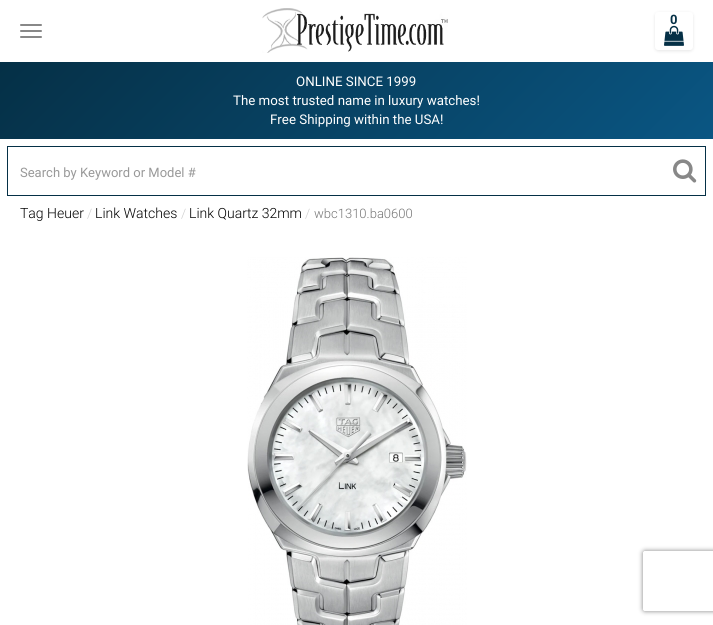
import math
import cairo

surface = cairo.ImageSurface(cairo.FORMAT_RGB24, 713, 625)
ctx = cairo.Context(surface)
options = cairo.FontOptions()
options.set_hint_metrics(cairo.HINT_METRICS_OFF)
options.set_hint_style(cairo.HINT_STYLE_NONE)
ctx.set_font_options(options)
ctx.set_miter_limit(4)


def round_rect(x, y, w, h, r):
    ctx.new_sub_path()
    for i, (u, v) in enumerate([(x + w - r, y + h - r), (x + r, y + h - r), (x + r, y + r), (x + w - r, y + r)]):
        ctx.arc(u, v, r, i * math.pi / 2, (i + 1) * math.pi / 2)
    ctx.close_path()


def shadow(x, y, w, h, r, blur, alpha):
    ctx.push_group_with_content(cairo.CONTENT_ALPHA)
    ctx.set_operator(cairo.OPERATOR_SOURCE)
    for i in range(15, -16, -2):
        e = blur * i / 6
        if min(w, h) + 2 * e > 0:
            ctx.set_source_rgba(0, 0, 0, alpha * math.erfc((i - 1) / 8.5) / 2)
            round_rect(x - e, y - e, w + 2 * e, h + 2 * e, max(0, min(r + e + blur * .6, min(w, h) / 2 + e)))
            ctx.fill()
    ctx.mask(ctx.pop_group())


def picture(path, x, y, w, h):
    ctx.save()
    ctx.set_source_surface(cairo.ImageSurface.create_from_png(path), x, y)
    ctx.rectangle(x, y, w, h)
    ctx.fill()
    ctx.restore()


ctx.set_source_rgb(1, 1, 1)
ctx.paint()
picture("img1.png", 262, 8, 186, 45)
ctx.set_source_rgb(0, 0, 0)
shadow(655, 13, 38, 38, 3, 1.5, 0.1)
ctx.set_source_rgb(1, 1, 1)
round_rect(655, 12, 38, 38, 3)
ctx.fill()
ctx.select_font_face("Roboto", cairo.FONT_SLANT_NORMAL, cairo.FONT_WEIGHT_BOLD)
ctx.set_font_size(13)
ctx.set_source_rgb(0.02, 0.188, 0.275)
ctx.move_to(670, 24)
ctx.show_text("0")
picture("img2.png", 664, 25, 20, 21)
ctx.set_source_rgb(0.533, 0.533, 0.533)
round_rect(20, 24, 22, 2, 1)
ctx.fill()
round_rect(20, 30, 22, 2, 1)
ctx.fill()
round_rect(20, 36, 22, 2, 1)
ctx.fill()
gradient = cairo.LinearGradient(159, -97, 554, 298)
gradient.add_color_stop_rgba(0, 0.02, 0.188, 0.275, 1)
gradient.add_color_stop_rgba(1, 0.039, 0.337, 0.514, 1)
ctx.set_source(gradient)
ctx.rectangle(0, 62, 713, 77)
ctx.fill()
ctx.select_font_face("Roboto")
ctx.set_font_size(13.3)
ctx.set_source_rgb(1, 1, 1)
ctx.move_to(296, 86)
ctx.show_text("ONLINE SINCE 1999")
ctx.move_to(233, 105)
ctx.show_text("The most trusted name in luxury watches!")
ctx.move_to(270, 124)
ctx.show_text("Free Shipping within the USA!")
ctx.rectangle(7.5, 146.5, 698, 49)
ctx.set_source_rgb(0.02, 0.188, 0.275)
ctx.set_line_width(1)
ctx.stroke()
ctx.set_font_size(13)
ctx.set_source_rgb(0.6, 0.6, 0.6)
ctx.move_to(20, 177)
ctx.show_text("Search by Keyword or Model #")
picture("img3.png", 673, 159, 24, 24)
ctx.select_font_face("Roboto Light")
ctx.set_font_size(14)
ctx.set_source_rgb(0, 0, 0)
ctx.move_to(20, 218)
ctx.show_text("Tag Heuer")
ctx.set_font_size(13)
ctx.set_source_rgb(0.8, 0.8, 0.8)
ctx.move_to(87, 218)
ctx.show_text("/")
ctx.set_font_size(14)
ctx.set_source_rgb(0, 0, 0)
ctx.move_to(95, 218)
ctx.show_text("Link Watches")
ctx.set_font_size(13)
ctx.set_source_rgb(0.8, 0.8, 0.8)
ctx.move_to(181, 218)
ctx.show_text("/")
ctx.set_font_size(14)
ctx.set_source_rgb(0, 0, 0)
ctx.move_to(189, 218)
ctx.show_text("Link Quartz 32mm")
ctx.set_font_size(13)
ctx.set_source_rgb(0.8, 0.8, 0.8)
ctx.move_to(305, 218)
ctx.show_text("/")
ctx.set_source_rgb(0.467, 0.467, 0.467)
ctx.move_to(314, 218)
ctx.show_text("wbc1310.ba0600")
picture("img4.png", 247, 257, 220, 368)
ctx.save()
ctx.set_fill_rule(cairo.FILL_RULE_EVEN_ODD)
ctx.new_path()
ctx.move_to(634, 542)
ctx.line_to(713, 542)
ctx.line_to(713, 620)
ctx.line_to(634, 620)
ctx.close_path()
ctx.move_to(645, 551)
ctx.line_to(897, 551)
ctx.curve_to(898, 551, 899, 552, 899, 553)
ctx.line_to(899, 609)
ctx.curve_to(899, 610, 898, 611, 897, 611)
ctx.line_to(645, 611)
ctx.curve_to(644, 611, 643, 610, 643, 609)
ctx.line_to(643, 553)
ctx.curve_to(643, 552, 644, 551, 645, 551)
ctx.close_path()
ctx.clip()
ctx.set_source_rgb(0.502, 0.502, 0.502)
shadow(643, 551, 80, 60, 2, 2.5, 1)
ctx.restore()
surface.write_to_png("page.png")
